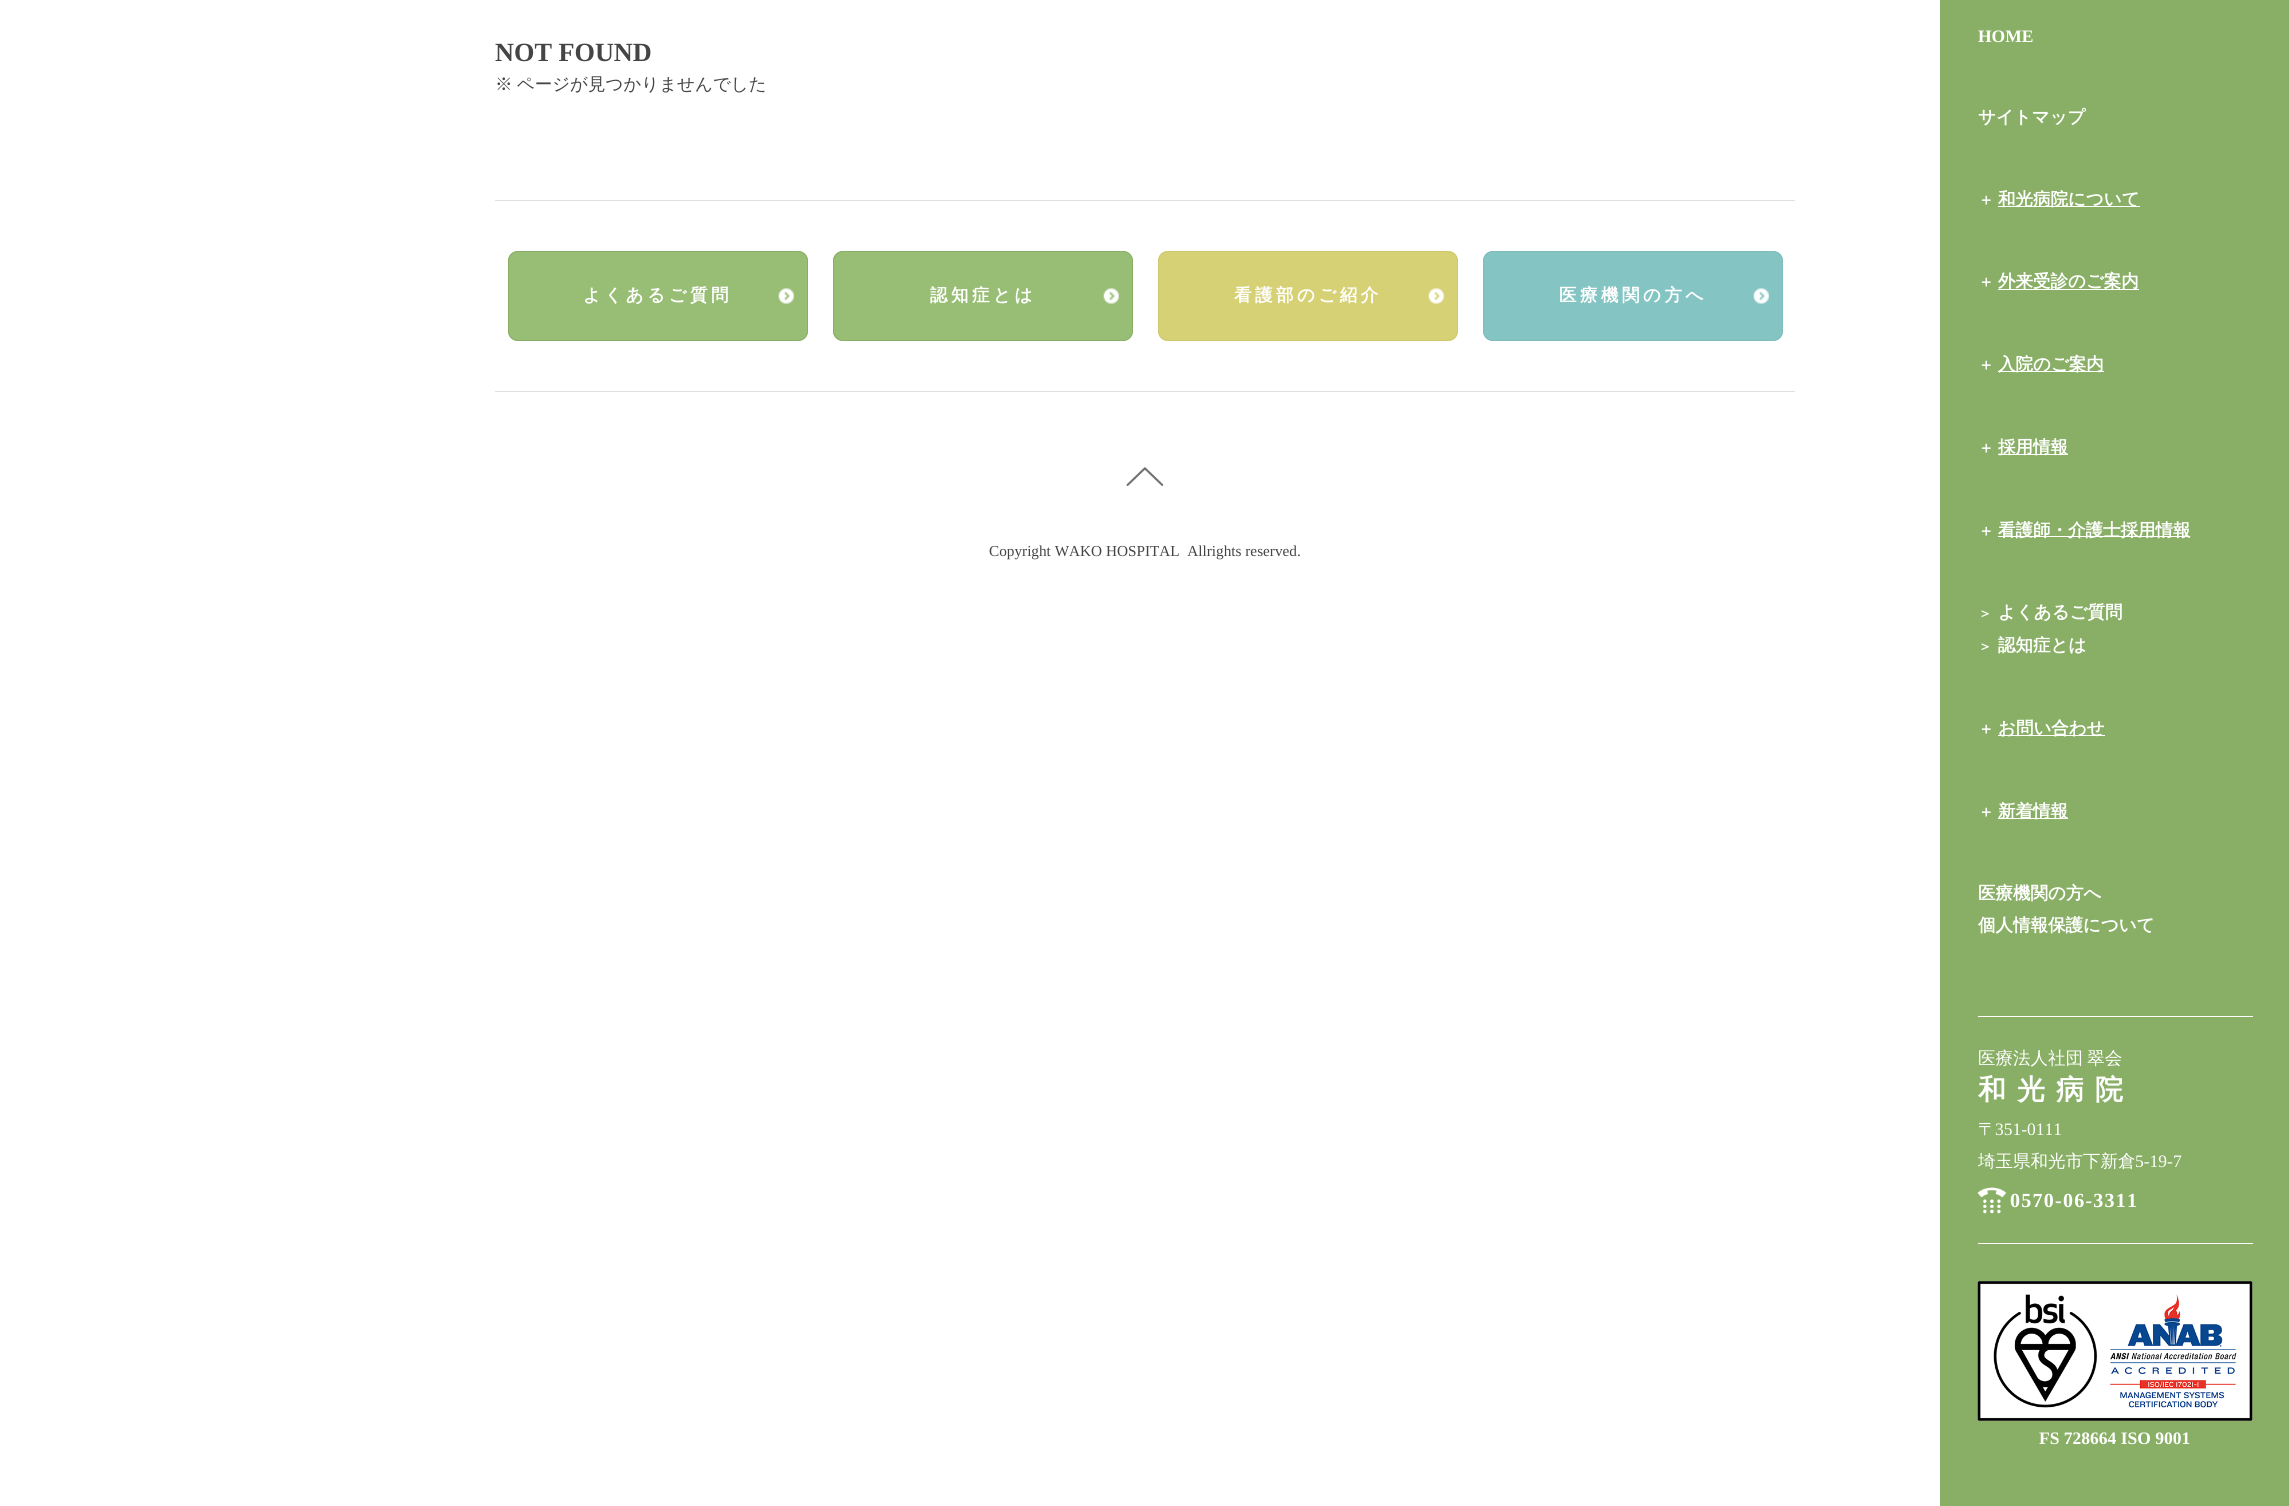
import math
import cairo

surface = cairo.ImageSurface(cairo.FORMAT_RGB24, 2289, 1506)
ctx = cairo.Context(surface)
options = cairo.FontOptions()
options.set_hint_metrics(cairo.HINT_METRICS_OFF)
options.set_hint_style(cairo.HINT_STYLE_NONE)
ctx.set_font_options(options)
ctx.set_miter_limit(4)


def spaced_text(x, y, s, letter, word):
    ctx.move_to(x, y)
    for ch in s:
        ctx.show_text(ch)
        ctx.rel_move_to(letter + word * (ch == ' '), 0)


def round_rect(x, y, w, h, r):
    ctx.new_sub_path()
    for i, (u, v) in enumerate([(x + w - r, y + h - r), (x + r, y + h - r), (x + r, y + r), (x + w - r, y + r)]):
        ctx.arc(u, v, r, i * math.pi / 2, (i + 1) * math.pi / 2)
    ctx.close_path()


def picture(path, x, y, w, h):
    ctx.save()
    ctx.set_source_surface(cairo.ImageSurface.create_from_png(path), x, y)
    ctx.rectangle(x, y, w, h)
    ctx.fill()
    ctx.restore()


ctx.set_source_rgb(1, 1, 1)
ctx.paint()
ctx.select_font_face("Liberation Serif", cairo.FONT_SLANT_NORMAL, cairo.FONT_WEIGHT_BOLD)
ctx.set_font_size(26.25)
ctx.set_source_rgb(0.271, 0.271, 0.271)
ctx.move_to(495, 61)
ctx.show_text("NOT FOUND")
ctx.select_font_face("WenQuanYi Zen Hei Medium")
ctx.set_font_size(17.5)
spaced_text(495, 90, "※ ページが見つかりませんでした", 0, -1)
ctx.set_source_rgb(0.878, 0.878, 0.878)
ctx.rectangle(495, 200, 1300, 1)
ctx.fill()
ctx.rectangle(495, 391, 1300, 1)
ctx.fill()
ctx.set_source_rgb(0.596, 0.745, 0.459)
round_rect(508, 251, 300, 90, 10)
ctx.fill()
picture("img1.png", 778, 288, 16, 16)
round_rect(508.5, 251.5, 299, 89, 9.5)
ctx.set_source_rgb(0.533, 0.686, 0.396)
ctx.set_line_width(1)
ctx.stroke()
ctx.select_font_face("WenQuanYi Zen Hei", cairo.FONT_SLANT_NORMAL, cairo.FONT_WEIGHT_BOLD)
ctx.set_source_rgb(1, 1, 1)
spaced_text(583, 301, "よくあるご質問", 3.5, 0)
ctx.set_source_rgb(0.596, 0.745, 0.459)
round_rect(833, 251, 300, 90, 10)
ctx.fill()
picture("img1.png", 1103, 288, 16, 16)
round_rect(833.5, 251.5, 299, 89, 9.5)
ctx.set_source_rgb(0.533, 0.686, 0.396)
ctx.stroke()
ctx.set_source_rgb(1, 1, 1)
spaced_text(930, 301, "認知症とは", 3.5, 0)
ctx.set_source_rgb(0.843, 0.82, 0.459)
round_rect(1158, 251, 300, 90, 10)
ctx.fill()
picture("img2.png", 1428, 288, 16, 16)
round_rect(1158.5, 251.5, 299, 89, 9.5)
ctx.set_source_rgb(0.812, 0.788, 0.439)
ctx.stroke()
ctx.set_source_rgb(1, 1, 1)
spaced_text(1234, 301, "看護部のご紹介", 3.5, 0)
ctx.set_source_rgb(0.518, 0.769, 0.765)
round_rect(1483, 251, 300, 90, 10)
ctx.fill()
picture("img3.png", 1753, 288, 16, 16)
round_rect(1483.5, 251.5, 299, 89, 9.5)
ctx.set_source_rgb(0.498, 0.741, 0.737)
ctx.stroke()
ctx.set_source_rgb(1, 1, 1)
spaced_text(1559, 301, "医療機関の方へ", 3.5, 0)
picture("img4.png", 1126, 467, 38, 19)
ctx.select_font_face("Liberation Serif")
ctx.set_font_size(15.25)
ctx.set_source_rgb(0.271, 0.271, 0.271)
ctx.move_to(989, 556)
ctx.show_text("Copyright WAKO HOSPITAL  Allrights reserved.")
ctx.set_source_rgb(0.533, 0.686, 0.396)
ctx.rectangle(1940, 0, 349, 1506)
ctx.fill()
ctx.select_font_face("Liberation Serif", cairo.FONT_SLANT_NORMAL, cairo.FONT_WEIGHT_BOLD)
ctx.set_font_size(17.5)
ctx.set_source_rgb(1, 1, 1)
ctx.move_to(1978, 42)
ctx.show_text("HOME")
ctx.select_font_face("WenQuanYi Zen Hei", cairo.FONT_SLANT_NORMAL, cairo.FONT_WEIGHT_BOLD)
ctx.move_to(1978, 123)
ctx.show_text("サイトマップ")
ctx.set_font_size(16)
ctx.move_to(1978, 205)
ctx.show_text("＋")
ctx.rectangle(1998, 206, 142, 1)
ctx.fill()
ctx.set_font_size(17.5)
ctx.move_to(1998, 205)
ctx.show_text("和光病院について")
ctx.set_font_size(16)
ctx.move_to(1978, 287)
ctx.show_text("＋")
ctx.rectangle(1998, 289, 141, 1)
ctx.fill()
ctx.set_font_size(17.5)
ctx.move_to(1998, 287)
ctx.show_text("外来受診のご案内")
ctx.set_font_size(16)
ctx.move_to(1978, 370)
ctx.show_text("＋")
ctx.rectangle(1998, 371, 106, 1)
ctx.fill()
ctx.set_font_size(17.5)
ctx.move_to(1998, 370)
ctx.show_text("入院のご案内")
ctx.set_font_size(16)
ctx.move_to(1978, 453)
ctx.show_text("＋")
ctx.rectangle(1998, 454, 70, 1)
ctx.fill()
ctx.set_font_size(17.5)
ctx.move_to(1998, 453)
ctx.show_text("採用情報")
ctx.set_font_size(16)
ctx.move_to(1978, 536)
ctx.show_text("＋")
ctx.rectangle(1998, 536, 192, 1)
ctx.fill()
ctx.set_font_size(17.5)
ctx.move_to(1998, 536)
ctx.show_text("看護師・介護士採用情報")
ctx.set_font_size(14)
ctx.move_to(1978, 618)
ctx.show_text("＞")
ctx.set_font_size(17.5)
ctx.move_to(1998, 618)
ctx.show_text("よくあるご質問")
ctx.set_font_size(14)
ctx.move_to(1978, 651)
ctx.show_text("＞")
ctx.set_font_size(17.5)
ctx.move_to(1998, 651)
ctx.show_text("認知症とは")
ctx.set_font_size(16)
ctx.move_to(1978, 734)
ctx.show_text("＋")
ctx.rectangle(1998, 735, 107, 1)
ctx.fill()
ctx.set_font_size(17.5)
ctx.move_to(1998, 734)
ctx.show_text("お問い合わせ")
ctx.set_font_size(16)
ctx.move_to(1978, 817)
ctx.show_text("＋")
ctx.rectangle(1998, 818, 70, 1)
ctx.fill()
ctx.set_font_size(17.5)
ctx.move_to(1998, 817)
ctx.show_text("新着情報")
ctx.move_to(1978, 899)
ctx.show_text("医療機関の方へ")
ctx.move_to(1978, 931)
ctx.show_text("個人情報保護について")
ctx.rectangle(1978, 1016, 275, 1)
ctx.fill()
ctx.rectangle(1978, 1243, 275, 1)
ctx.fill()
ctx.select_font_face("WenQuanYi Zen Hei Medium")
spaced_text(1978, 1064, "医療法人社団 翠会", 0, -1)
ctx.select_font_face("WenQuanYi Zen Hei", cairo.FONT_SLANT_NORMAL, cairo.FONT_WEIGHT_BOLD)
ctx.set_font_size(28)
spaced_text(1978, 1099, "和光病院", 11, 0)
ctx.select_font_face("WenQuanYi Zen Hei Medium")
ctx.set_font_size(17.5)
ctx.move_to(1978, 1135)
ctx.show_text("〒")
ctx.select_font_face("Liberation Serif")
ctx.move_to(1995, 1135)
ctx.show_text("351-0111")
ctx.select_font_face("WenQuanYi Zen Hei Medium")
ctx.move_to(1978, 1167)
ctx.show_text("埼玉県和光市下新倉")
ctx.select_font_face("Liberation Serif")
ctx.move_to(2135, 1167)
ctx.show_text("5-19-7")
picture("img5.png", 1977, 1187, 30, 27)
ctx.select_font_face("Liberation Serif", cairo.FONT_SLANT_NORMAL, cairo.FONT_WEIGHT_BOLD)
ctx.set_font_size(20)
spaced_text(2010, 1207, "0570-06-3311", 1.25, 0)
picture("img6.png", 1977, 1281, 276, 140)
ctx.set_font_size(17.5)
ctx.move_to(2039, 1444)
ctx.show_text("FS 728664 ISO 9001")
surface.write_to_png("page.png")
